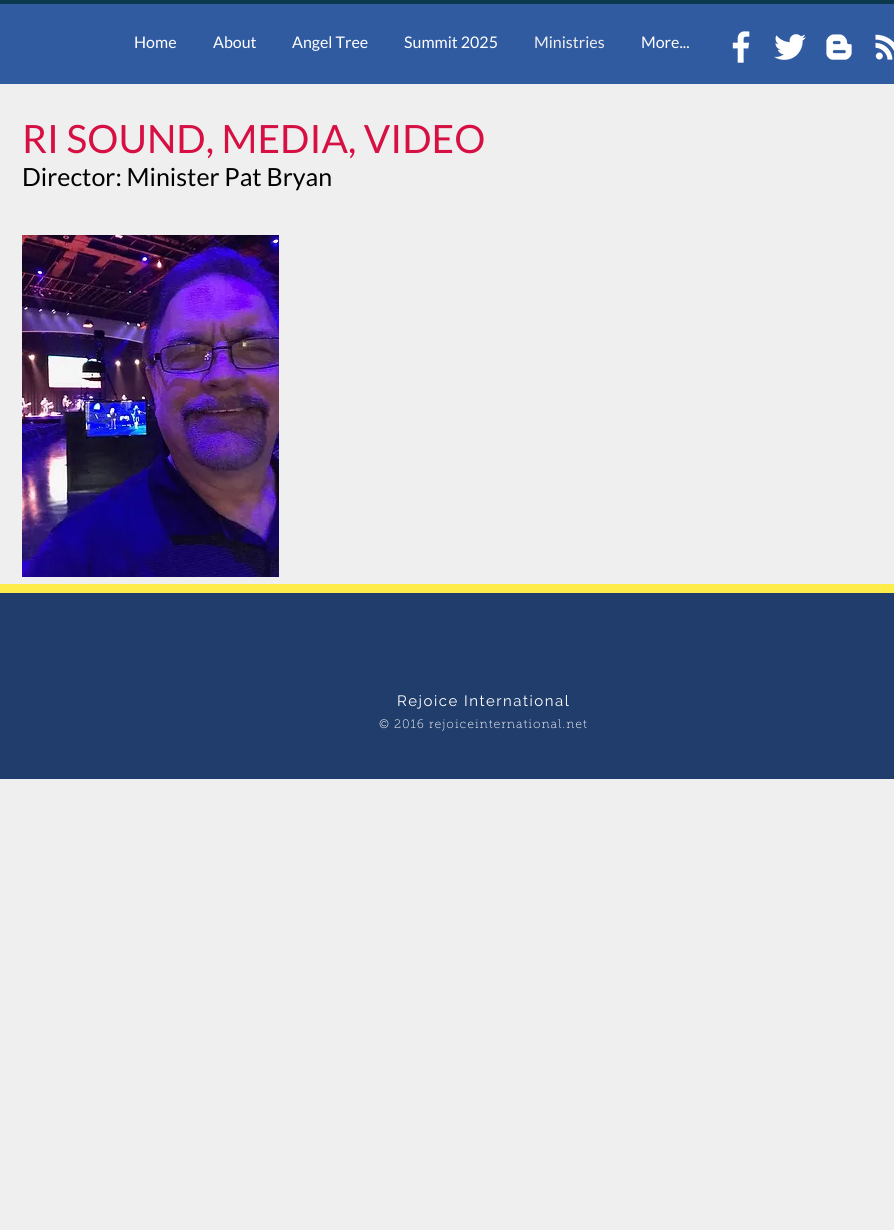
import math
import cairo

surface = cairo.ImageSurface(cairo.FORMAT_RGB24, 894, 1230)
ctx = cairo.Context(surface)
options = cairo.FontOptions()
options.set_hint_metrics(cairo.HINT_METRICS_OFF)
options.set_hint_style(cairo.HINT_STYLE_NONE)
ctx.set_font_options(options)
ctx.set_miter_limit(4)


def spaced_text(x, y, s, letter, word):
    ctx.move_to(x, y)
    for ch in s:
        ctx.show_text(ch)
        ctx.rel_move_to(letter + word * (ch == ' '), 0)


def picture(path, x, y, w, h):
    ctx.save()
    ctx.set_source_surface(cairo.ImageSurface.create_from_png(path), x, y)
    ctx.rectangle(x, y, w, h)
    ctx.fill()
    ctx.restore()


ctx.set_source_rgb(0.937, 0.937, 0.937)
ctx.paint()
ctx.set_source_rgb(0.188, 0.357, 0.631)
ctx.rectangle(0, 4, 894, 80)
ctx.fill()
ctx.set_source_rgb(0.047, 0.22, 0.294)
ctx.rectangle(0, 0, 894, 4)
ctx.fill()
ctx.select_font_face("Lato")
ctx.set_font_size(16)
ctx.set_source_rgb(1, 1, 1)
ctx.move_to(134, 48)
ctx.show_text("Home")
ctx.move_to(213, 48)
ctx.show_text("About")
ctx.move_to(292, 48)
ctx.show_text("Angel Tree")
ctx.move_to(404, 48)
ctx.show_text("Summit 2025")
ctx.set_source_rgb(0.937, 0.937, 0.937)
ctx.move_to(534, 48)
ctx.show_text("Ministries")
ctx.set_source_rgb(1, 1, 1)
ctx.move_to(641, 48)
ctx.show_text("More...")
picture("img1.png", 732, 31, 18, 32)
picture("img2.png", 774, 34, 32, 26)
picture("img3.png", 826, 34, 26, 26)
picture("img4.png", 875, 34, 19, 26)
ctx.set_font_size(39)
ctx.set_source_rgb(0.839, 0.063, 0.263)
ctx.move_to(22, 153)
ctx.show_text("RI SOUND, MEDIA, VIDEO")
ctx.set_font_size(25)
ctx.set_source_rgb(0, 0, 0)
ctx.move_to(22, 186)
ctx.show_text("Director: Minister Pat Bryan")
picture("img5.png", 22, 235, 257, 342)
ctx.set_source_rgb(0.992, 0.922, 0.286)
ctx.rectangle(0, 584, 894, 9)
ctx.fill()
ctx.set_source_rgb(0.125, 0.239, 0.42)
ctx.rectangle(0, 593, 894, 186)
ctx.fill()
ctx.select_font_face("Raleway")
ctx.set_font_size(15)
ctx.set_source_rgb(1, 1, 1)
spaced_text(397, 706, "Rejoice International", 1.5, 0)
ctx.select_font_face("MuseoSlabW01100 Thin")
ctx.set_font_size(12.25)
spaced_text(379, 728, "© 2016 rejoiceinternational.net", 1, 0)
surface.write_to_png("page.png")
